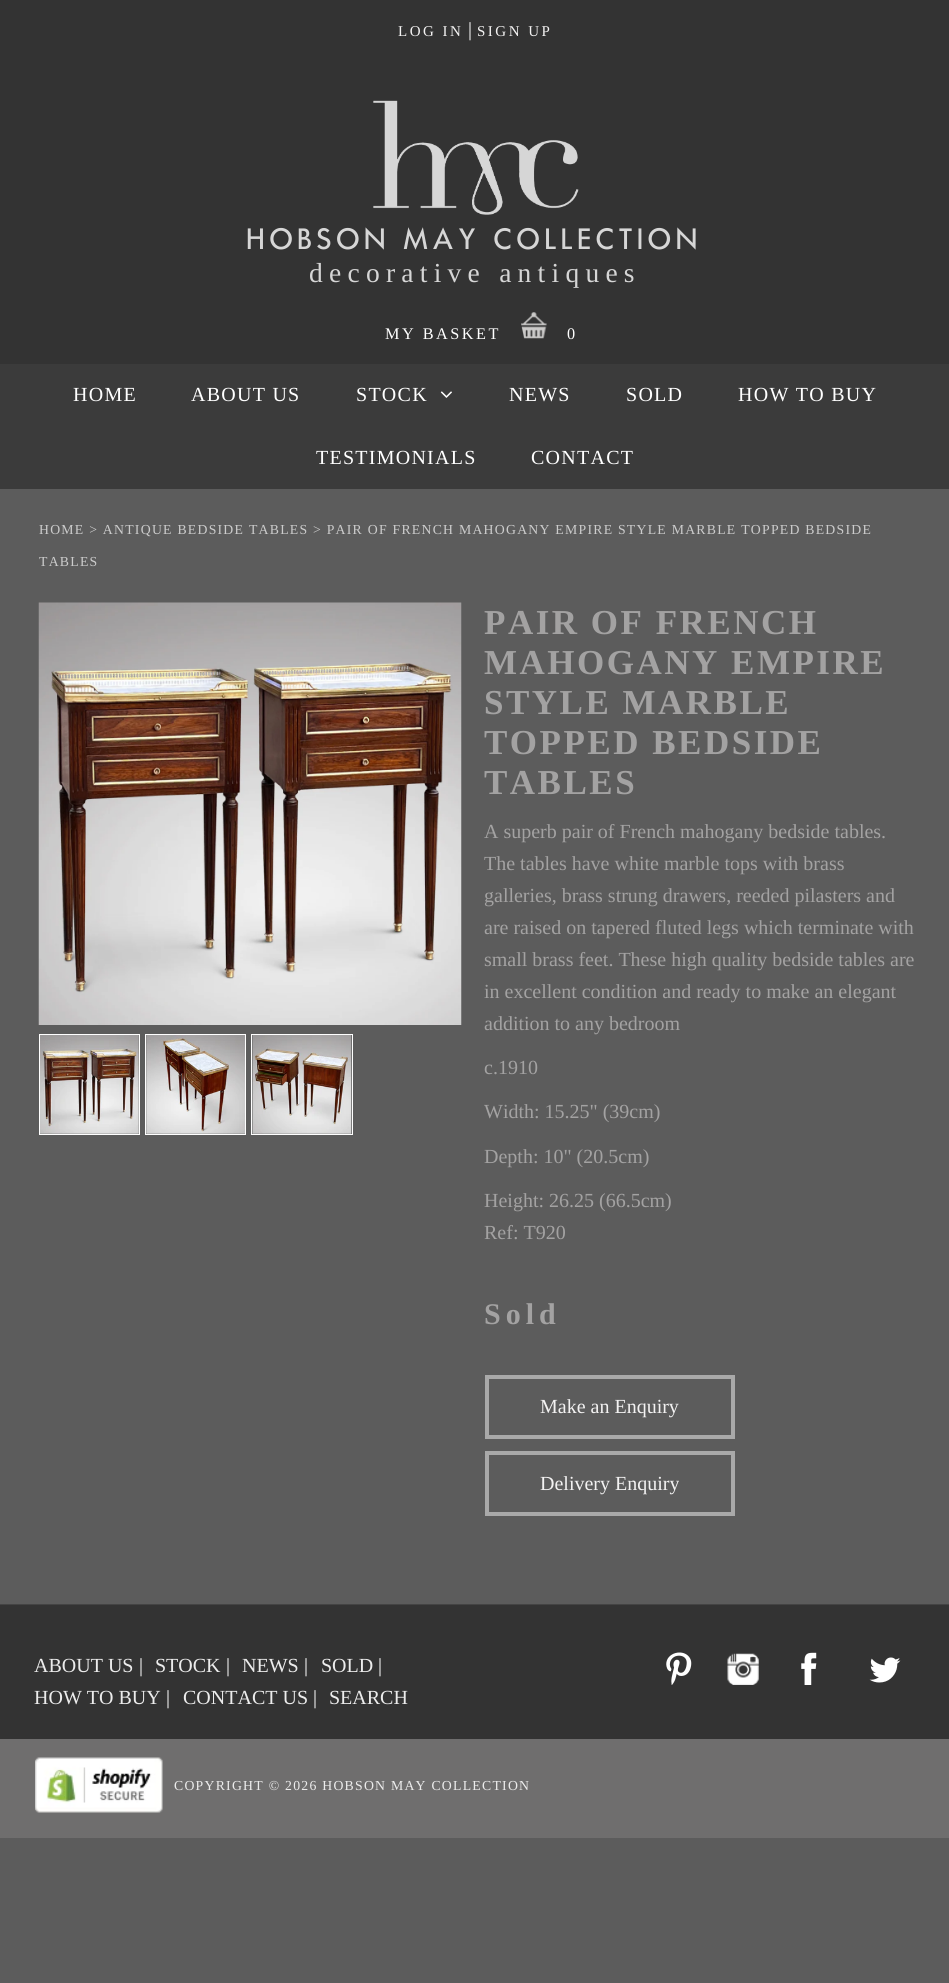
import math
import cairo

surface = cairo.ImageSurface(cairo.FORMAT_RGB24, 949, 1983)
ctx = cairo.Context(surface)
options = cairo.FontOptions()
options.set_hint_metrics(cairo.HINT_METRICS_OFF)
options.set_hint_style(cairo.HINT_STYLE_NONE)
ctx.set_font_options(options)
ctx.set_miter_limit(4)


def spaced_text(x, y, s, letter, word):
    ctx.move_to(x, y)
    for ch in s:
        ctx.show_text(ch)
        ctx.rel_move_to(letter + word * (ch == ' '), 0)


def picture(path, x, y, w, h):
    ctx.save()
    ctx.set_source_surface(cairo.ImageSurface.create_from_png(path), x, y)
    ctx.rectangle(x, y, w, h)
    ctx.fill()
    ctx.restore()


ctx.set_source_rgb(0.361, 0.361, 0.361)
ctx.paint()
ctx.set_source_rgb(0.2, 0.2, 0.2)
ctx.rectangle(0, 0, 949, 364)
ctx.fill()
ctx.select_font_face("Liberation Serif")
ctx.set_font_size(15)
ctx.set_source_rgb(0.953, 0.949, 0.949)
spaced_text(398, 36, "LOG IN", 2.5, 0)
ctx.set_font_size(20)
ctx.set_source_rgb(1, 1, 1)
ctx.move_to(468, 36)
ctx.show_text("|")
ctx.set_font_size(15)
ctx.set_source_rgb(0.953, 0.949, 0.949)
spaced_text(477, 36, "SIGN UP", 2.5, 0)
picture("img1.png", 373, 100, 206, 115)
ctx.select_font_face("Futura Medium")
ctx.set_font_size(31.25)
ctx.set_source_rgb(0.839, 0.839, 0.839)
spaced_text(247, 249, "HOBSON MAY COLLECTION", 6.25, 0)
ctx.select_font_face("Liberation Serif")
ctx.set_font_size(27.5)
spaced_text(309, 282, "decorative antiques", 6.25, 0)
ctx.set_font_size(16.25)
ctx.set_source_rgb(1, 1, 1)
spaced_text(385, 339, "MY BASKET", 2.5, 0)
picture("img2.png", 521, 312, 26, 27)
spaced_text(567, 339, "0", 2.5, 0)
ctx.set_source_rgb(0.231, 0.231, 0.231)
ctx.rectangle(0, 364, 949, 125)
ctx.fill()
ctx.set_font_size(20)
ctx.set_source_rgb(1, 1, 1)
spaced_text(73, 401, "HOME", 1.25, 0)
spaced_text(191, 401, "ABOUT US", 1.25, 0)
spaced_text(356, 401, "STOCK", 1.25, 0)
picture("img3.png", 440, 391, 12, 7)
spaced_text(509, 401, "NEWS", 1.25, 0)
spaced_text(626, 401, "SOLD", 1.25, 0)
spaced_text(738, 401, "HOW TO BUY", 1.25, 0)
spaced_text(316, 464, "TESTIMONIALS", 1.25, 0)
spaced_text(531, 464, "CONTACT", 1.25, 0)
ctx.set_font_size(13.75)
ctx.set_source_rgb(0.8, 0.8, 0.8)
spaced_text(39, 534, "HOME > ANTIQUE BEDSIDE TABLES > PAIR OF FRENCH MAHOGANY EMPIRE STYLE MARBLE TOPPED BEDSIDE", 1.25, 0)
spaced_text(39, 566, "TABLES", 1.25, 0)
picture("img4.png", 38, 602, 424, 423)
ctx.rectangle(39.5, 1034.5, 100, 100)
ctx.set_source_rgb(1, 1, 1)
ctx.set_line_width(1)
ctx.stroke()
ctx.rectangle(145.5, 1034.5, 100, 100)
ctx.stroke()
ctx.rectangle(251.5, 1034.5, 101, 100)
ctx.stroke()
picture("img5.png", 40, 1035, 99, 99)
picture("img6.png", 146, 1035, 99, 99)
picture("img7.png", 252, 1035, 100, 99)
ctx.select_font_face("Liberation Serif", cairo.FONT_SLANT_NORMAL, cairo.FONT_WEIGHT_BOLD)
ctx.set_font_size(35)
ctx.set_source_rgb(0.639, 0.635, 0.635)
spaced_text(484, 634, "PAIR OF FRENCH", 2.5, 0)
spaced_text(484, 674, "MAHOGANY EMPIRE", 2.5, 0)
spaced_text(484, 714, "STYLE MARBLE", 2.5, 0)
spaced_text(484, 754, "TOPPED BEDSIDE", 2.5, 0)
spaced_text(484, 794, "TABLES", 2.5, 0)
ctx.select_font_face("Liberation Serif")
ctx.set_font_size(20)
ctx.move_to(484, 838)
ctx.show_text("A superb pair of French mahogany bedside tables.")
ctx.move_to(484, 870)
ctx.show_text("The tables have white marble tops with brass")
ctx.move_to(484, 902)
ctx.show_text("galleries, brass strung drawers, reeded pilasters and")
ctx.move_to(484, 934)
ctx.show_text("are raised on tapered fluted legs which terminate with")
ctx.move_to(484, 966)
ctx.show_text("small brass feet. These high quality bedside tables are")
ctx.move_to(484, 998)
ctx.show_text("in excellent condition and ready to make an elegant")
ctx.move_to(484, 1030)
ctx.show_text("addition to any bedroom")
ctx.move_to(484, 1074)
ctx.show_text("c.1910")
ctx.move_to(484, 1118)
ctx.show_text("Width: 15.25\" (39cm)")
ctx.move_to(484, 1163)
ctx.show_text("Depth: 10\" (20.5cm)")
ctx.move_to(484, 1207)
ctx.show_text("Height: 26.25 (66.5cm)")
ctx.move_to(484, 1239)
ctx.show_text("Ref: T920")
ctx.select_font_face("Liberation Serif", cairo.FONT_SLANT_NORMAL, cairo.FONT_WEIGHT_BOLD)
ctx.set_font_size(30)
spaced_text(484, 1324, "Sold", 5, 0)
ctx.rectangle(487, 1377, 246, 60)
ctx.set_source_rgb(0.663, 0.663, 0.663)
ctx.set_line_width(4)
ctx.stroke()
ctx.select_font_face("Liberation Serif")
ctx.set_font_size(20)
ctx.set_source_rgb(0.953, 0.949, 0.949)
ctx.move_to(540, 1413)
ctx.show_text("Make an Enquiry")
ctx.rectangle(487, 1453, 246, 61)
ctx.set_source_rgb(0.663, 0.663, 0.663)
ctx.stroke()
ctx.set_source_rgb(0.953, 0.949, 0.949)
ctx.move_to(540, 1490)
ctx.show_text("Delivery Enquiry")
ctx.set_source_rgb(0.2, 0.2, 0.2)
ctx.rectangle(0, 1605, 949, 134)
ctx.fill()
ctx.set_source_rgb(0.267, 0.267, 0.267)
ctx.rectangle(0, 1604, 949, 1)
ctx.fill()
ctx.set_source_rgb(0.925, 0.925, 0.925)
ctx.move_to(34, 1672)
ctx.show_text("ABOUT US")
ctx.set_source_rgb(1, 1, 1)
ctx.move_to(139, 1672)
ctx.show_text("|")
ctx.set_source_rgb(0.925, 0.925, 0.925)
ctx.move_to(155, 1672)
ctx.show_text("STOCK")
ctx.set_source_rgb(1, 1, 1)
ctx.move_to(226, 1672)
ctx.show_text("|")
ctx.set_source_rgb(0.925, 0.925, 0.925)
ctx.move_to(242, 1672)
ctx.show_text("NEWS")
ctx.set_source_rgb(1, 1, 1)
ctx.move_to(304, 1672)
ctx.show_text("|")
ctx.set_source_rgb(0.925, 0.925, 0.925)
ctx.move_to(321, 1672)
ctx.show_text("SOLD")
ctx.set_source_rgb(1, 1, 1)
ctx.move_to(378, 1672)
ctx.show_text("|")
ctx.set_source_rgb(0.925, 0.925, 0.925)
ctx.move_to(34, 1704)
ctx.show_text("HOW TO BUY")
ctx.set_source_rgb(1, 1, 1)
ctx.move_to(166, 1704)
ctx.show_text("|")
ctx.set_source_rgb(0.925, 0.925, 0.925)
ctx.move_to(183, 1704)
ctx.show_text("CONTACT US")
ctx.set_source_rgb(1, 1, 1)
ctx.move_to(313, 1704)
ctx.show_text("|")
ctx.set_source_rgb(0.925, 0.925, 0.925)
ctx.move_to(329, 1704)
ctx.show_text("SEARCH")
picture("img8.png", 666, 1652, 26, 33)
picture("img9.png", 727, 1653, 32, 32)
picture("img10.png", 801, 1652, 16, 33)
picture("img11.png", 869, 1657, 32, 26)
ctx.set_source_rgb(0.435, 0.431, 0.431)
ctx.rectangle(0, 1739, 949, 99)
ctx.fill()
picture("img12.png", 35, 1757, 128, 56)
ctx.set_font_size(13.75)
ctx.set_source_rgb(0.925, 0.925, 0.925)
spaced_text(174, 1790, "COPYRIGHT © 2026 HOBSON MAY COLLECTION", 1.25, 0)
surface.write_to_png("page.png")
